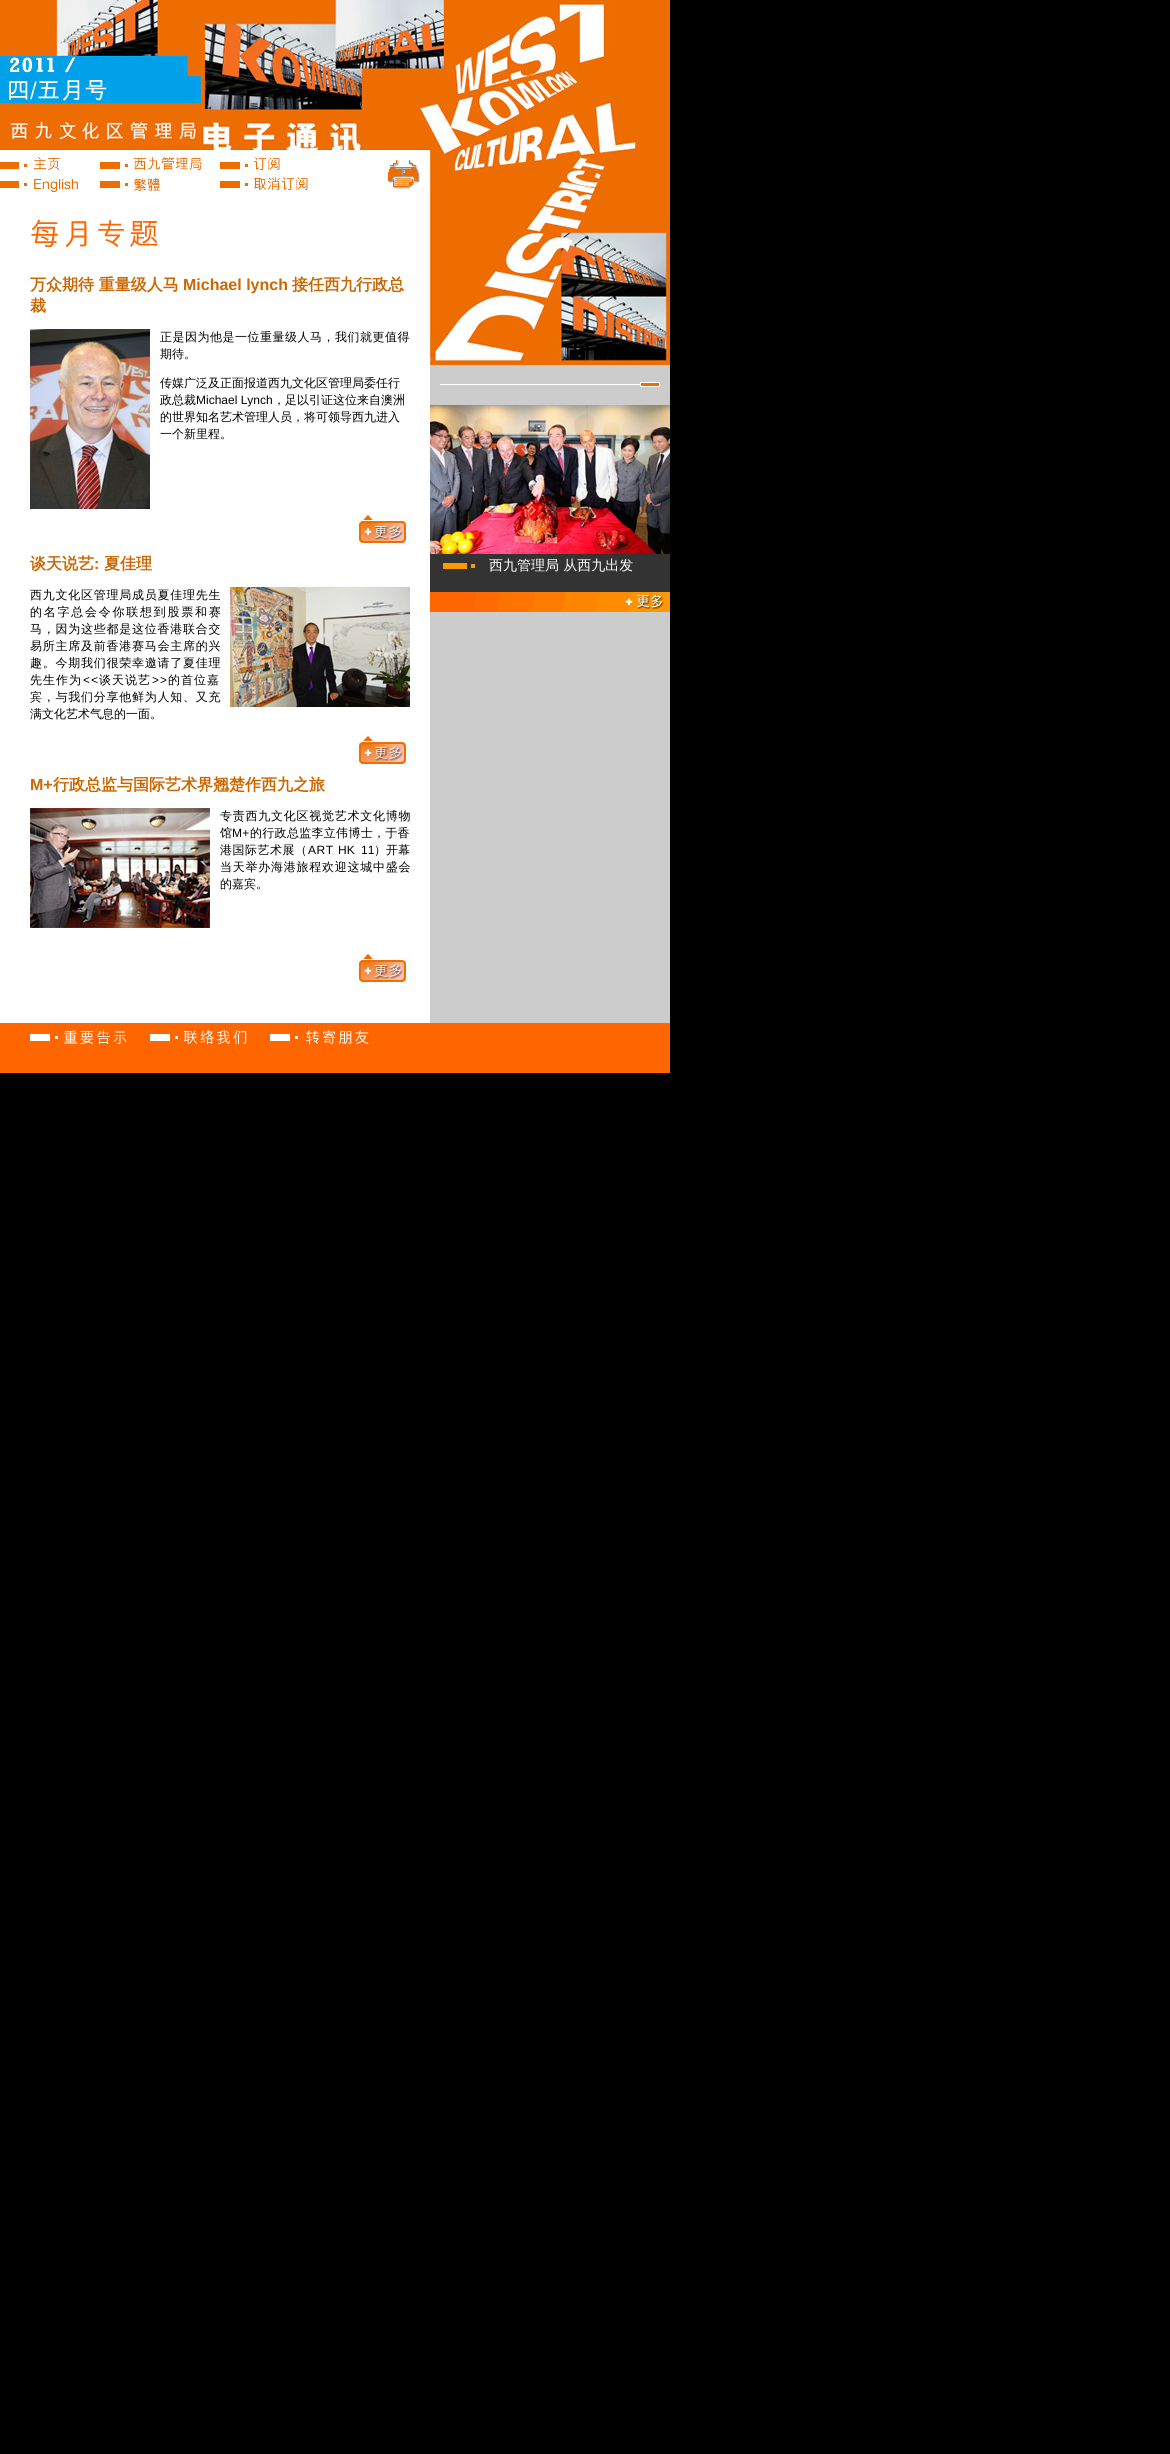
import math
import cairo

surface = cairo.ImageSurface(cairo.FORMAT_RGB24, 1170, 2454)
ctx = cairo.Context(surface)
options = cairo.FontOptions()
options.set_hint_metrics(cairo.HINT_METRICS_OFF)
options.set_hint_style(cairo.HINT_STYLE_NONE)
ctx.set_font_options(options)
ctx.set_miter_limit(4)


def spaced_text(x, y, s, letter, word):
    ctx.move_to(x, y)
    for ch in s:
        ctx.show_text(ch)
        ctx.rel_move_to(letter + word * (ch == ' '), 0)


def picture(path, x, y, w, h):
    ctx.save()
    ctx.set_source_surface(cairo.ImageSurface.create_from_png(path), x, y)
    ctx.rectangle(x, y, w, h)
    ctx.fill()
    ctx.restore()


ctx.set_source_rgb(0, 0, 0)
ctx.paint()
picture("img1.png", 0, 0, 670, 150)
ctx.set_source_rgb(1, 1, 1)
ctx.rectangle(0, 150, 430, 873)
ctx.fill()
picture("img2.png", 0, 157, 61, 13)
picture("img3.png", 0, 179, 78, 13)
picture("img4.png", 100, 157, 102, 13)
picture("img5.png", 100, 178, 60, 13)
picture("img6.png", 220, 157, 60, 13)
picture("img7.png", 220, 177, 88, 13)
picture("img8.png", 388, 160, 32, 29)
picture("img9.png", 31, 219, 127, 29)
ctx.select_font_face("WenQuanYi Zen Hei", cairo.FONT_SLANT_NORMAL, cairo.FONT_WEIGHT_BOLD)
ctx.set_font_size(16)
ctx.set_source_rgb(0.8, 0.4, 0)
ctx.move_to(30, 290)
ctx.show_text("万众期待 重量级人马")
ctx.select_font_face("Liberation Sans", cairo.FONT_SLANT_NORMAL, cairo.FONT_WEIGHT_BOLD)
ctx.move_to(183, 290)
ctx.show_text("Michael lynch")
ctx.select_font_face("WenQuanYi Zen Hei", cairo.FONT_SLANT_NORMAL, cairo.FONT_WEIGHT_BOLD)
ctx.move_to(292, 290)
ctx.show_text("接任西九行政总")
ctx.move_to(30, 311)
ctx.show_text("裁")
picture("img10.png", 30, 329, 120, 180)
ctx.select_font_face("WenQuanYi Zen Hei Medium")
ctx.set_font_size(12)
ctx.set_source_rgb(0, 0, 0)
spaced_text(160, 341, "正是因为他是一位重量级人马，我们就更值得", 0.5, 0)
ctx.move_to(160, 358)
ctx.show_text("期待。")
ctx.move_to(160, 387)
ctx.show_text("传媒广泛及正面报道西九文化区管理局委任行")
ctx.move_to(160, 404)
ctx.show_text("政总裁")
ctx.select_font_face("Liberation Sans")
ctx.move_to(196, 404)
ctx.show_text("Michael Lynch")
ctx.select_font_face("WenQuanYi Zen Hei Medium")
ctx.move_to(273, 404)
ctx.show_text("，足以引证这位来自澳洲")
ctx.move_to(160, 421)
ctx.show_text("的世界知名艺术管理人员，将可领导西九进入")
ctx.move_to(160, 438)
ctx.show_text("一个新里程。")
picture("img11.png", 355, 514, 55, 30)
ctx.select_font_face("WenQuanYi Zen Hei", cairo.FONT_SLANT_NORMAL, cairo.FONT_WEIGHT_BOLD)
ctx.set_font_size(16)
ctx.set_source_rgb(0.8, 0.4, 0)
ctx.move_to(30, 569)
ctx.show_text("谈天说艺")
ctx.select_font_face("Liberation Sans", cairo.FONT_SLANT_NORMAL, cairo.FONT_WEIGHT_BOLD)
ctx.move_to(94, 569)
ctx.show_text(":")
ctx.select_font_face("WenQuanYi Zen Hei", cairo.FONT_SLANT_NORMAL, cairo.FONT_WEIGHT_BOLD)
ctx.move_to(104, 569)
ctx.show_text("夏佳理")
ctx.select_font_face("WenQuanYi Zen Hei Medium")
ctx.set_font_size(12)
ctx.set_source_rgb(0, 0, 0)
spaced_text(30, 599, "西九文化区管理局成员夏佳理先生", 0.75, 0)
picture("img12.png", 230, 587, 180, 120)
spaced_text(30, 616, "的名字总会令你联想到股票和赛", 1.75, 0)
spaced_text(30, 633, "马，因为这些都是这位香港联合交", 0.75, 0)
spaced_text(30, 650, "易所主席及前香港赛马会主席的兴", 0.75, 0)
spaced_text(30, 667, "趣。今期我们很荣幸邀请了夏佳理", 0.75, 0)
spaced_text(30, 684, "先生作为", 1, 0)
ctx.select_font_face("Liberation Sans")
spaced_text(83, 684, "<<", 1, 0)
ctx.select_font_face("WenQuanYi Zen Hei Medium")
spaced_text(99, 684, "谈天说艺", 1, 0)
ctx.select_font_face("Liberation Sans")
spaced_text(152, 684, ">>", 1, 0)
ctx.select_font_face("WenQuanYi Zen Hei Medium")
spaced_text(168, 684, "的首位嘉", 1, 0)
spaced_text(30, 701, "宾，与我们分享他鲜为人知、又充", 0.75, 0)
ctx.move_to(30, 718)
ctx.show_text("满文化艺术气息的一面。")
picture("img11.png", 355, 735, 55, 30)
ctx.select_font_face("Liberation Sans", cairo.FONT_SLANT_NORMAL, cairo.FONT_WEIGHT_BOLD)
ctx.set_font_size(16)
ctx.set_source_rgb(0.8, 0.4, 0)
ctx.move_to(30, 790)
ctx.show_text("M+")
ctx.select_font_face("WenQuanYi Zen Hei", cairo.FONT_SLANT_NORMAL, cairo.FONT_WEIGHT_BOLD)
ctx.move_to(53, 790)
ctx.show_text("行政总监与国际艺术界翘楚作西九之旅")
picture("img13.png", 30, 808, 180, 120)
ctx.select_font_face("WenQuanYi Zen Hei Medium")
ctx.set_font_size(12)
ctx.set_source_rgb(0, 0, 0)
spaced_text(220, 820, "专责西九文化区视觉艺术文化博物", 0.75, 0)
spaced_text(220, 837, "馆", 0.3, 0)
ctx.select_font_face("Liberation Sans")
spaced_text(232, 837, "M+", 0.3, 0)
ctx.select_font_face("WenQuanYi Zen Hei Medium")
spaced_text(250, 837, "的行政总监李立伟博士，于香", 0.3, 0)
spaced_text(220, 854, "港国际艺术展（", 0.5, 0)
ctx.select_font_face("Liberation Sans")
spaced_text(308, 854, "ART", 0.5, 0)
spaced_text(338, 854, "HK 11", 0, 3)
ctx.select_font_face("WenQuanYi Zen Hei Medium")
ctx.move_to(374, 854)
ctx.show_text("）开幕")
spaced_text(220, 871, "当天举办海港旅程欢迎这城中盛会", 0.75, 0)
ctx.move_to(220, 888)
ctx.show_text("的嘉宾。")
picture("img11.png", 355, 953, 55, 30)
ctx.set_source_rgb(0.8, 0.8, 0.8)
ctx.rectangle(430, 365, 240, 658)
ctx.fill()
picture("img14.png", 430, 150, 240, 215)
picture("img15.png", 440, 382, 220, 5)
picture("img16.png", 430, 405, 240, 149)
ctx.set_source_rgb(0.2, 0.2, 0.2)
ctx.rectangle(430, 554, 240, 38)
ctx.fill()
picture("img17.png", 443, 563, 32, 6)
ctx.set_font_size(14)
ctx.set_source_rgb(1, 1, 1)
ctx.move_to(489, 570)
ctx.show_text("西九管理局 从西九出发")
picture("img18.png", 430, 592, 240, 20)
ctx.set_source_rgb(1, 0.4, 0)
ctx.rectangle(0, 1023, 30, 50)
ctx.fill()
picture("img19.png", 30, 1023, 120, 25)
picture("img20.png", 150, 1023, 120, 25)
picture("img21.png", 270, 1023, 120, 25)
ctx.rectangle(390, 1023, 280, 50)
ctx.fill()
ctx.rectangle(30, 1048, 360, 25)
ctx.fill()
surface.write_to_png("page.png")
